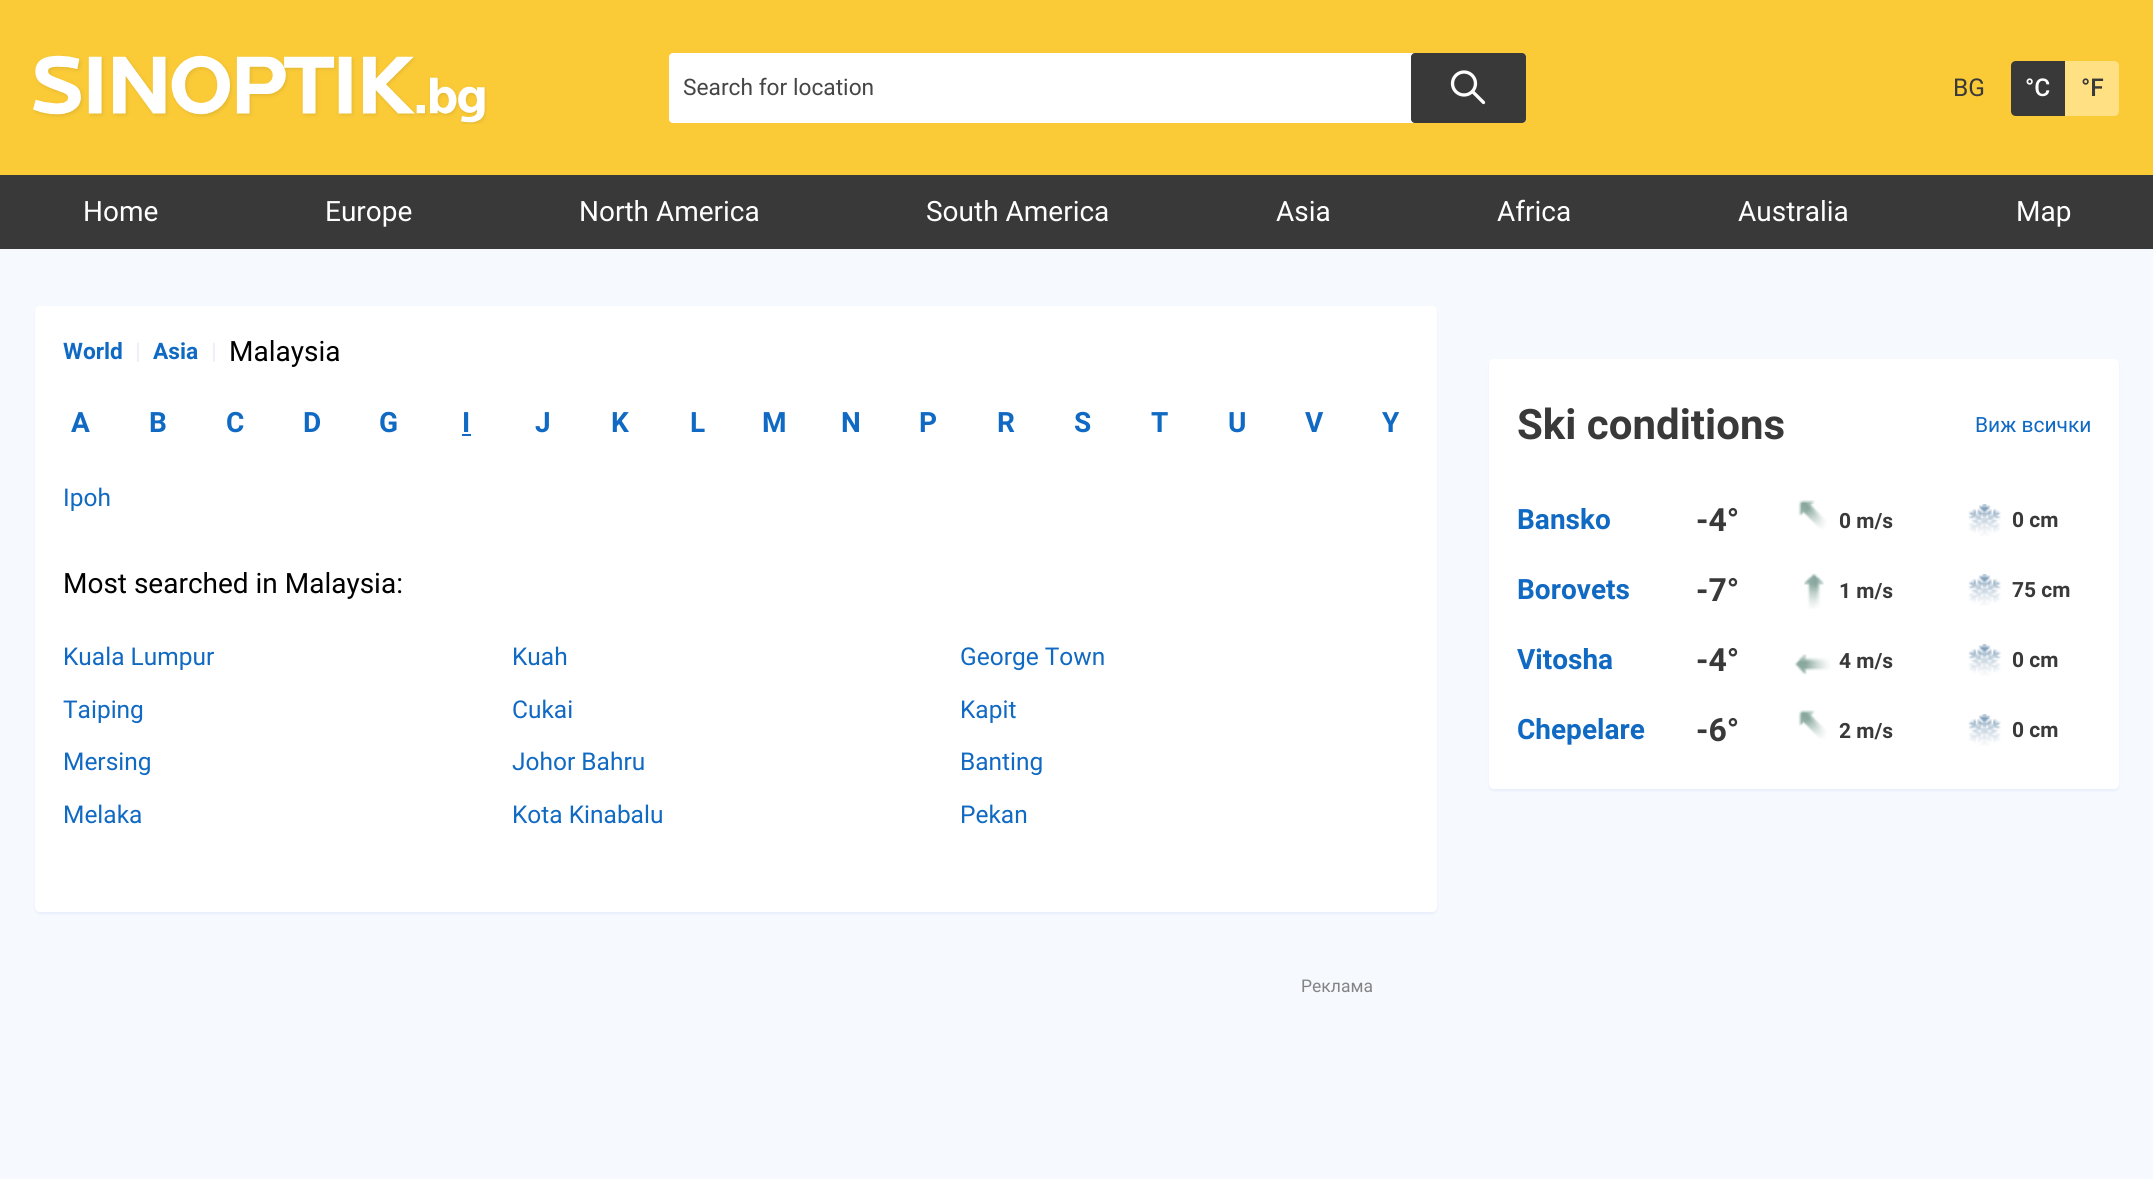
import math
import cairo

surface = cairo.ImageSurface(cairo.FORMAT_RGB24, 2153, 1179)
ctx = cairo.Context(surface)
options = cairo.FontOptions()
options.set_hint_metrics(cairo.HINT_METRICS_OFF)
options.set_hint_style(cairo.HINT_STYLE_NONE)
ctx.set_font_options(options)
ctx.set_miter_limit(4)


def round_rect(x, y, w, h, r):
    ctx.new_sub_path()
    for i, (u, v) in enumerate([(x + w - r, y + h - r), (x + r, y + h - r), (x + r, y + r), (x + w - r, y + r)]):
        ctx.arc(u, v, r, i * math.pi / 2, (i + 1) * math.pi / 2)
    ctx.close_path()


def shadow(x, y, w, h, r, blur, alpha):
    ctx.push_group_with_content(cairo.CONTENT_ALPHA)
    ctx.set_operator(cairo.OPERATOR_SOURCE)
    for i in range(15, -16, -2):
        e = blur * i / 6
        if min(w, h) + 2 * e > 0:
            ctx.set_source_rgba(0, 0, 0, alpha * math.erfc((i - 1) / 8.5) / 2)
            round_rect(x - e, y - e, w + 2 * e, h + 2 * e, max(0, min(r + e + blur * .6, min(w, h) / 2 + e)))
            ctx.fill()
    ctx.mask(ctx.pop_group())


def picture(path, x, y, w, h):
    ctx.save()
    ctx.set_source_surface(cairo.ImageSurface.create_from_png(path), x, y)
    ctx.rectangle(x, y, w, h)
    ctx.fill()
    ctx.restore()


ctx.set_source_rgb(0.961, 0.973, 0.992)
ctx.paint()
ctx.set_source_rgb(0.98, 0.792, 0.216)
ctx.rectangle(0, 0, 2153, 175)
ctx.fill()
picture("img1.png", 33, 55, 454, 69)
ctx.set_source_rgb(1, 1, 1)
round_rect(669, 53, 857, 70, 4)
ctx.fill()
ctx.select_font_face("Roboto")
ctx.set_font_size(22.75)
ctx.set_source_rgb(0.271, 0.271, 0.271)
ctx.move_to(683, 95)
ctx.show_text("Search for location")
ctx.set_source_rgb(0.224, 0.224, 0.224)
round_rect(1411, 53, 115, 70, 4)
ctx.fill()
ctx.arc(1464, 83.5, 11.5, 0, 2 * math.pi)
ctx.set_source_rgb(1, 1, 1)
ctx.set_line_width(3.3)
ctx.stroke()
ctx.new_path()
ctx.move_to(1473.5, 92.5)
ctx.line_to(1483.5, 102.5)
ctx.set_line_cap(cairo.LINE_CAP_ROUND)
ctx.stroke()
ctx.set_font_size(24.5)
ctx.set_source_rgb(0.224, 0.224, 0.224)
ctx.move_to(1953, 96)
ctx.show_text("BG")
ctx.new_path()
ctx.move_to(2016, 61)
ctx.line_to(2065, 61)
ctx.line_to(2065, 116)
ctx.line_to(2016, 116)
ctx.curve_to(2013, 116, 2011, 114, 2011, 111)
ctx.line_to(2011, 66)
ctx.curve_to(2011, 63, 2013, 61, 2016, 61)
ctx.close_path()
ctx.fill()
ctx.select_font_face("Roboto Medium")
ctx.set_source_rgb(1, 1, 1)
ctx.move_to(2025, 96)
ctx.show_text("°C")
ctx.set_source_rgb(1, 0.878, 0.514)
ctx.new_path()
ctx.move_to(2065, 61)
ctx.line_to(2114, 61)
ctx.curve_to(2117, 61, 2119, 63, 2119, 66)
ctx.line_to(2119, 111)
ctx.curve_to(2119, 114, 2117, 116, 2114, 116)
ctx.line_to(2065, 116)
ctx.close_path()
ctx.fill()
ctx.set_source_rgb(0.224, 0.224, 0.224)
ctx.move_to(2081, 96)
ctx.show_text("°F")
ctx.rectangle(0, 175, 2153, 74)
ctx.fill()
ctx.select_font_face("Roboto")
ctx.set_font_size(28)
ctx.set_source_rgb(1, 1, 1)
ctx.move_to(83, 221)
ctx.show_text("Home")
ctx.move_to(325, 221)
ctx.show_text("Europe")
ctx.move_to(579, 221)
ctx.show_text("North America")
ctx.move_to(926, 221)
ctx.show_text("South America")
ctx.move_to(1276, 221)
ctx.show_text("Asia")
ctx.move_to(1497, 221)
ctx.show_text("Africa")
ctx.move_to(1738, 221)
ctx.show_text("Australia")
ctx.move_to(2016, 221)
ctx.show_text("Map")
ctx.set_source_rgb(0.675, 0.776, 0.969)
shadow(35, 308, 1402, 606, 5, 1, 0.19)
ctx.set_source_rgb(1, 1, 1)
round_rect(35, 306, 1402, 606, 5)
ctx.fill()
ctx.select_font_face("Roboto", cairo.FONT_SLANT_NORMAL, cairo.FONT_WEIGHT_BOLD)
ctx.set_font_size(22.75)
ctx.set_source_rgb(0.063, 0.412, 0.761)
ctx.move_to(63, 359)
ctx.show_text("World")
ctx.set_source_rgb(0.925, 0.937, 0.961)
ctx.move_to(135, 359)
ctx.show_text("|")
ctx.set_source_rgb(0.063, 0.412, 0.761)
ctx.move_to(153, 359)
ctx.show_text("Asia")
ctx.set_source_rgb(0.925, 0.937, 0.961)
ctx.move_to(211, 359)
ctx.show_text("|")
ctx.select_font_face("Roboto")
ctx.set_font_size(28)
ctx.set_source_rgb(0, 0, 0)
ctx.move_to(229, 361)
ctx.show_text("Malaysia")
ctx.select_font_face("Roboto", cairo.FONT_SLANT_NORMAL, cairo.FONT_WEIGHT_BOLD)
ctx.set_source_rgb(0.063, 0.412, 0.761)
ctx.move_to(71, 432)
ctx.show_text("A")
ctx.move_to(149, 432)
ctx.show_text("B")
ctx.move_to(226, 432)
ctx.show_text("C")
ctx.move_to(303, 432)
ctx.show_text("D")
ctx.move_to(379, 432)
ctx.show_text("G")
ctx.move_to(462, 432)
ctx.show_text("I")
ctx.rectangle(462, 434, 9, 2)
ctx.fill()
ctx.move_to(535, 432)
ctx.show_text("J")
ctx.move_to(611, 432)
ctx.show_text("K")
ctx.move_to(690, 432)
ctx.show_text("L")
ctx.move_to(762, 432)
ctx.show_text("M")
ctx.move_to(841, 432)
ctx.show_text("N")
ctx.move_to(919, 432)
ctx.show_text("P")
ctx.move_to(997, 432)
ctx.show_text("R")
ctx.move_to(1074, 432)
ctx.show_text("S")
ctx.move_to(1151, 432)
ctx.show_text("T")
ctx.move_to(1228, 432)
ctx.show_text("U")
ctx.move_to(1305, 432)
ctx.show_text("V")
ctx.move_to(1382, 432)
ctx.show_text("Y")
ctx.select_font_face("Roboto")
ctx.set_font_size(24.5)
ctx.move_to(63, 506)
ctx.show_text("Ipoh")
ctx.set_font_size(28)
ctx.set_source_rgb(0, 0, 0)
ctx.move_to(63, 593)
ctx.show_text("Most searched in Malaysia:")
ctx.set_font_size(24.5)
ctx.set_source_rgb(0.063, 0.412, 0.761)
ctx.move_to(63, 665)
ctx.show_text("Kuala Lumpur")
ctx.move_to(63, 718)
ctx.show_text("Taiping")
ctx.move_to(63, 770)
ctx.show_text("Mersing")
ctx.move_to(63, 823)
ctx.show_text("Melaka")
ctx.move_to(512, 665)
ctx.show_text("Kuah")
ctx.move_to(512, 718)
ctx.show_text("Cukai")
ctx.move_to(512, 770)
ctx.show_text("Johor Bahru")
ctx.move_to(512, 823)
ctx.show_text("Kota Kinabalu")
ctx.move_to(960, 665)
ctx.show_text("George Town")
ctx.move_to(960, 718)
ctx.show_text("Kapit")
ctx.move_to(960, 770)
ctx.show_text("Banting")
ctx.move_to(960, 823)
ctx.show_text("Pekan")
ctx.set_source_rgb(0.675, 0.776, 0.969)
shadow(1489, 361, 630, 430, 5, 1, 0.19)
ctx.set_source_rgb(1, 1, 1)
round_rect(1489, 359, 630, 430, 5)
ctx.fill()
ctx.select_font_face("Roboto", cairo.FONT_SLANT_NORMAL, cairo.FONT_WEIGHT_BOLD)
ctx.set_font_size(42)
ctx.set_source_rgb(0.224, 0.224, 0.224)
ctx.move_to(1517, 439)
ctx.show_text("Ski conditions")
ctx.select_font_face("Roboto")
ctx.set_font_size(21)
ctx.set_source_rgb(0.063, 0.412, 0.761)
ctx.move_to(1975, 432)
ctx.show_text("Виж всички")
ctx.select_font_face("Roboto", cairo.FONT_SLANT_NORMAL, cairo.FONT_WEIGHT_BOLD)
ctx.set_font_size(28)
ctx.move_to(1517, 529)
ctx.show_text("Bansko")
ctx.set_font_size(32)
ctx.set_source_rgb(0.224, 0.224, 0.224)
ctx.move_to(1696, 531)
ctx.show_text("-4°")
picture("img2.png", 1798, 500, 29, 29)
ctx.set_font_size(21)
ctx.move_to(1839, 528)
ctx.show_text("0 m/s")
picture("img3.png", 1968, 504, 33, 32)
ctx.move_to(2012, 527)
ctx.show_text("0 cm")
ctx.set_font_size(28)
ctx.set_source_rgb(0.063, 0.412, 0.761)
ctx.move_to(1517, 599)
ctx.show_text("Borovets")
ctx.set_font_size(32)
ctx.set_source_rgb(0.224, 0.224, 0.224)
ctx.move_to(1696, 601)
ctx.show_text("-7°")
picture("img4.png", 1804, 573, 20, 36)
ctx.set_font_size(21)
ctx.move_to(1839, 598)
ctx.show_text("1 m/s")
picture("img3.png", 1968, 574, 33, 32)
ctx.move_to(2012, 597)
ctx.show_text("75 cm")
ctx.set_font_size(28)
ctx.set_source_rgb(0.063, 0.412, 0.761)
ctx.move_to(1517, 669)
ctx.show_text("Vitosha")
ctx.set_font_size(32)
ctx.set_source_rgb(0.224, 0.224, 0.224)
ctx.move_to(1696, 671)
ctx.show_text("-4°")
picture("img5.png", 1795, 654, 35, 21)
ctx.set_font_size(21)
ctx.move_to(1839, 668)
ctx.show_text("4 m/s")
picture("img3.png", 1968, 644, 33, 32)
ctx.move_to(2012, 667)
ctx.show_text("0 cm")
ctx.set_font_size(28)
ctx.set_source_rgb(0.063, 0.412, 0.761)
ctx.move_to(1517, 739)
ctx.show_text("Chepelare")
ctx.set_font_size(32)
ctx.set_source_rgb(0.224, 0.224, 0.224)
ctx.move_to(1696, 741)
ctx.show_text("-6°")
picture("img2.png", 1798, 710, 29, 29)
ctx.set_font_size(21)
ctx.move_to(1839, 738)
ctx.show_text("2 m/s")
picture("img3.png", 1968, 714, 33, 32)
ctx.move_to(2012, 737)
ctx.show_text("0 cm")
ctx.select_font_face("Roboto")
ctx.set_font_size(17.5)
ctx.set_source_rgb(0.518, 0.518, 0.518)
ctx.move_to(1301, 992)
ctx.show_text("Реклама")
surface.write_to_png("page.png")
